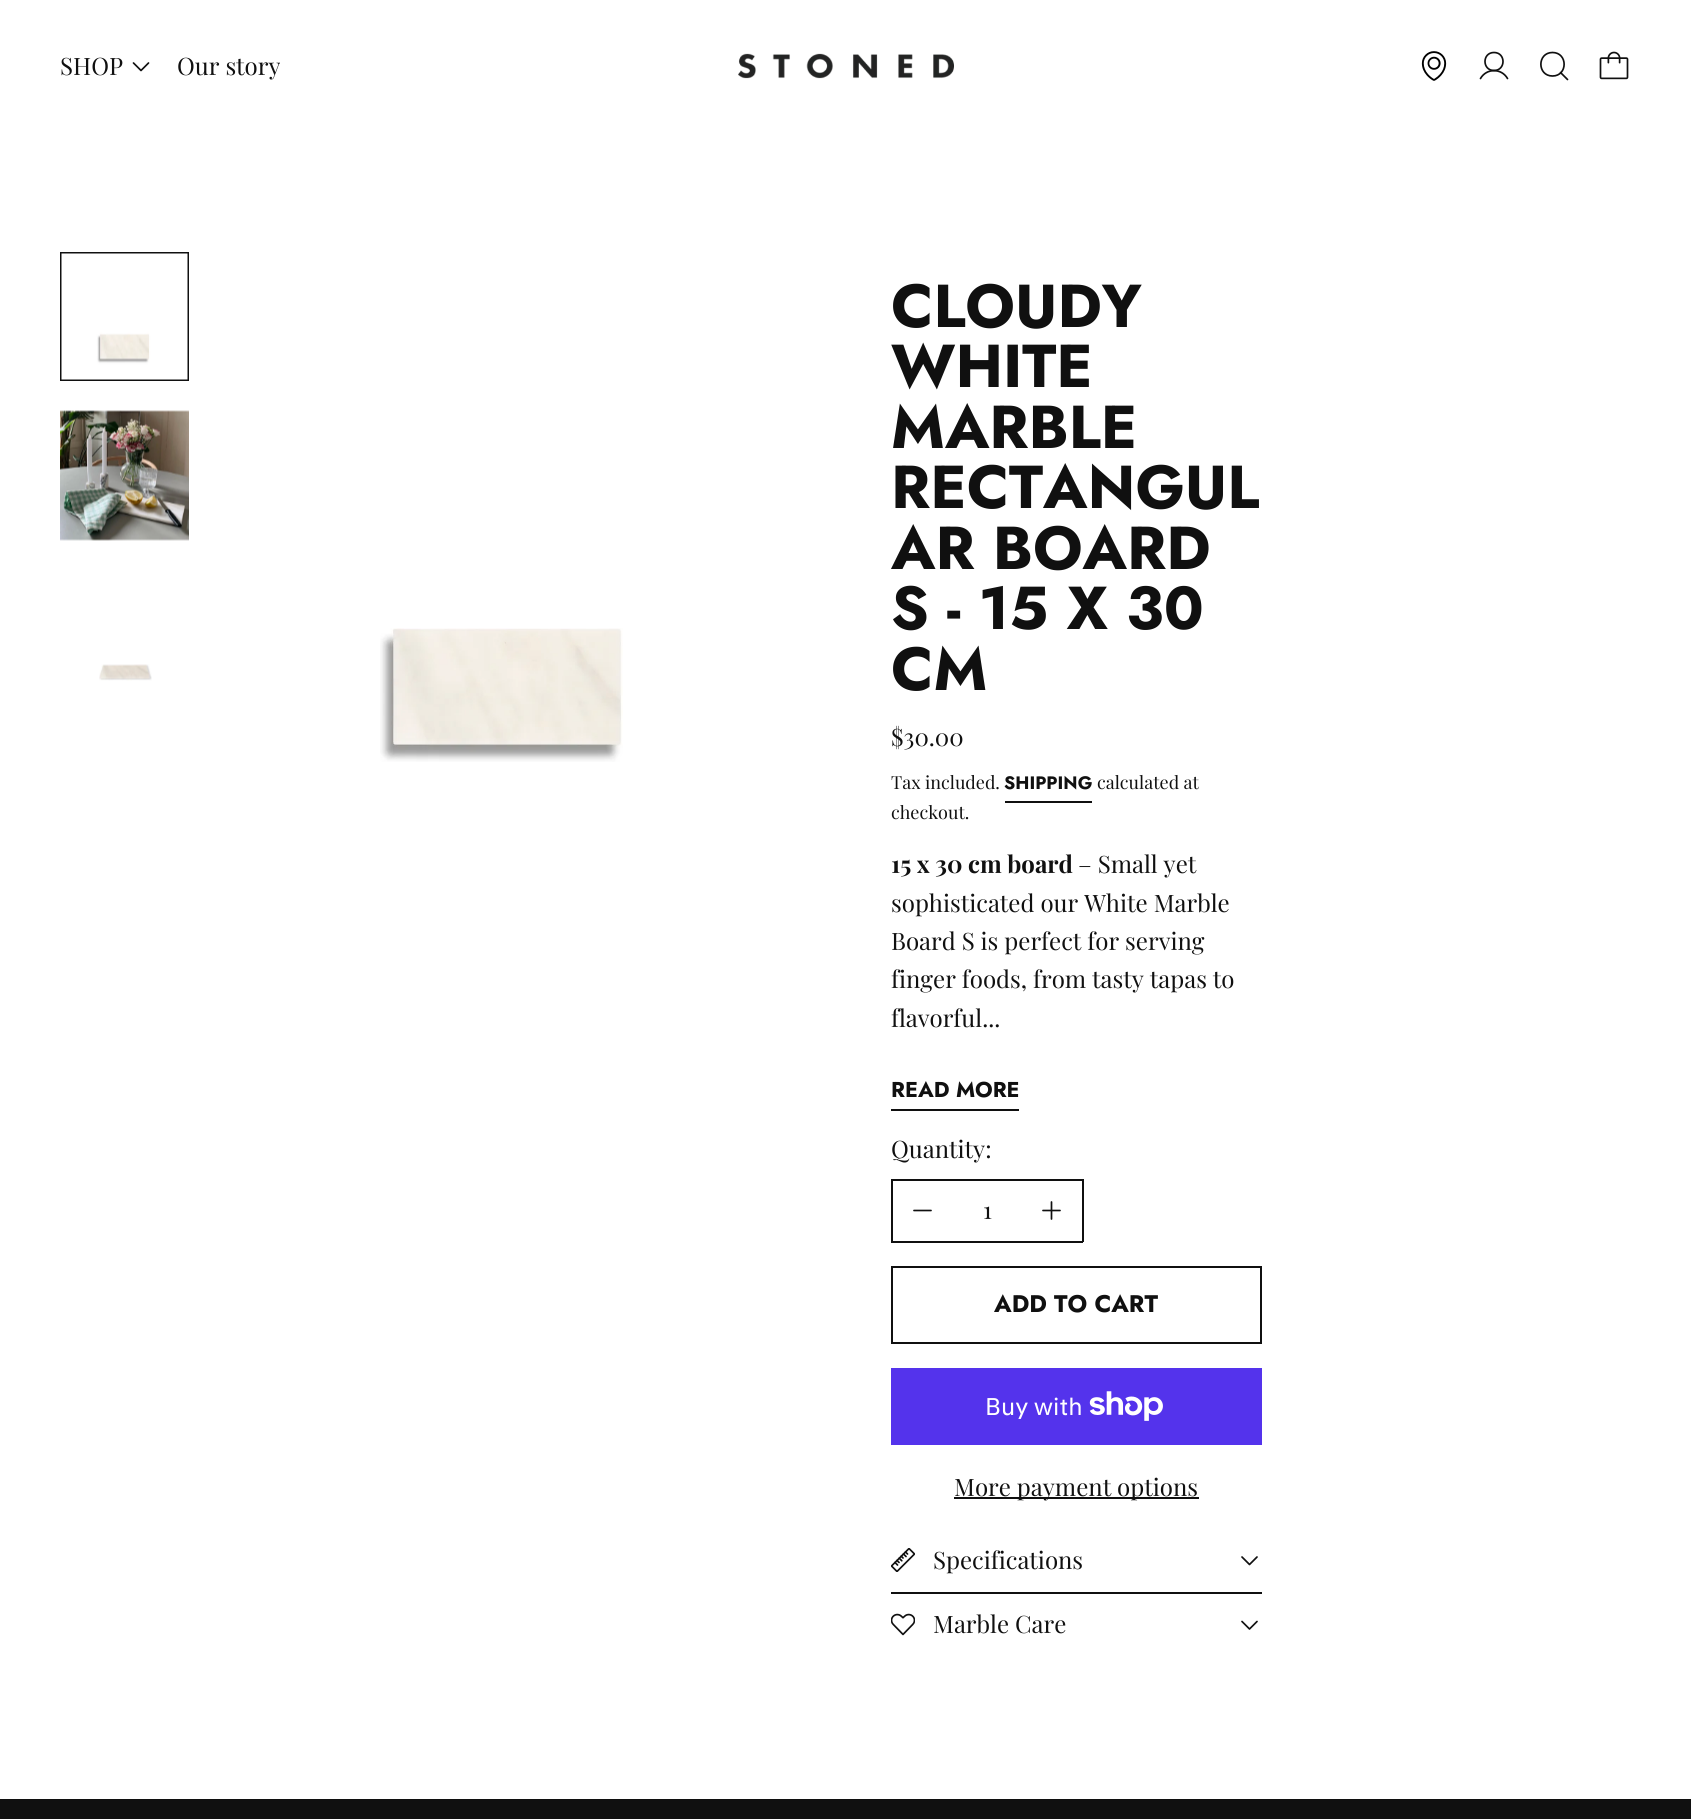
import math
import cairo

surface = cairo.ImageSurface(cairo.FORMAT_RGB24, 1691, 1819)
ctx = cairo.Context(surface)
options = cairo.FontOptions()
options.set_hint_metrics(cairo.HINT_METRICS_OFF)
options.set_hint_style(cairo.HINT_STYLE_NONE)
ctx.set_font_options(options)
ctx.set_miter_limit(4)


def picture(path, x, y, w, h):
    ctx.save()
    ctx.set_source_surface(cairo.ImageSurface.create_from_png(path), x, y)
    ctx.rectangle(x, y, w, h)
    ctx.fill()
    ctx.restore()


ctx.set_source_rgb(1, 1, 1)
ctx.paint()
ctx.select_font_face("Playfair Display")
ctx.set_font_size(24)
ctx.set_source_rgb(0.063, 0.063, 0.063)
ctx.move_to(60, 75)
ctx.show_text("SHOP")
ctx.new_path()
ctx.move_to(148.5, 63)
ctx.line_to(141, 70.5)
ctx.line_to(133.5, 63)
ctx.set_line_width(1.7)
ctx.set_line_cap(cairo.LINE_CAP_ROUND)
ctx.set_line_join(cairo.LINE_JOIN_ROUND)
ctx.stroke()
ctx.move_to(177, 75)
ctx.show_text("Our story")
picture("img1.png", 738, 53, 216, 26)
picture("img2.png", 1421, 51, 26, 30)
ctx.new_path()
ctx.move_to(1494, 70.5)
ctx.curve_to(1506, 70.5, 1506, 52.5, 1494, 52.5)
ctx.curve_to(1482, 52.5, 1482, 70.5, 1494, 70.5)
ctx.close_path()
ctx.set_line_cap(cairo.LINE_CAP_BUTT)
ctx.set_line_join(cairo.LINE_JOIN_MITER)
ctx.stroke()
ctx.new_path()
ctx.move_to(1480.5, 78.5)
ctx.curve_to(1486.5, 68, 1501.5, 68, 1507.5, 78.5)
ctx.set_line_cap(cairo.LINE_CAP_ROUND)
ctx.set_line_join(cairo.LINE_JOIN_ROUND)
ctx.stroke()
ctx.new_path()
ctx.move_to(1552.5, 76)
ctx.curve_to(1568, 76, 1568, 52.5, 1552.5, 52.5)
ctx.curve_to(1537, 52.5, 1537, 76, 1552.5, 76)
ctx.close_path()
ctx.move_to(1560.5, 72.5)
ctx.line_to(1567.5, 79.5)
ctx.stroke()
picture("img3.png", 1599, 51, 30, 29)
ctx.rectangle(61, 253, 127, 127)
ctx.set_line_width(2)
ctx.set_line_cap(cairo.LINE_CAP_BUTT)
ctx.set_line_join(cairo.LINE_JOIN_MITER)
ctx.stroke()
picture("img4.png", 61, 253, 127, 127)
picture("img5.png", 60, 410, 129, 131)
picture("img6.png", 99, 664, 53, 17)
picture("img7.png", 380, 628, 243, 134)
ctx.select_font_face("Jost", cairo.FONT_SLANT_NORMAL, cairo.FONT_WEIGHT_BOLD)
ctx.set_font_size(60.5)
ctx.move_to(891, 327)
ctx.show_text("CLOUDY")
ctx.move_to(891, 387)
ctx.show_text("WHITE")
ctx.move_to(891, 448)
ctx.show_text("MARBLE")
ctx.move_to(891, 508)
ctx.show_text("RECTANGUL")
ctx.move_to(891, 569)
ctx.show_text("AR BOARD")
ctx.move_to(891, 629)
ctx.show_text("S - 15 X 30")
ctx.move_to(891, 690)
ctx.show_text("CM")
ctx.select_font_face("Playfair Display")
ctx.set_font_size(24)
ctx.move_to(891, 746)
ctx.show_text("$30.00")
ctx.set_font_size(18)
ctx.move_to(891, 789)
ctx.show_text("Tax included.")
ctx.select_font_face("Jost", cairo.FONT_SLANT_NORMAL, cairo.FONT_WEIGHT_BOLD)
ctx.move_to(1004, 789)
ctx.show_text("SHIPPING")
ctx.rectangle(1005, 801, 87, 2)
ctx.fill()
ctx.select_font_face("Playfair Display")
ctx.move_to(1097, 789)
ctx.show_text("calculated at")
ctx.move_to(891, 819)
ctx.show_text("checkout.")
ctx.select_font_face("Playfair Display", cairo.FONT_SLANT_NORMAL, cairo.FONT_WEIGHT_BOLD)
ctx.set_font_size(24)
ctx.move_to(891, 873)
ctx.show_text("15 x 30 cm board")
ctx.select_font_face("Playfair Display")
ctx.move_to(1078, 873)
ctx.show_text("– Small yet")
ctx.move_to(891, 912)
ctx.show_text("sophisticated our White Marble")
ctx.move_to(891, 950)
ctx.show_text("Board S is perfect for serving")
ctx.move_to(891, 988)
ctx.show_text("finger foods, from tasty tapas to")
ctx.move_to(891, 1027)
ctx.show_text("flavorful...")
ctx.select_font_face("Jost", cairo.FONT_SLANT_NORMAL, cairo.FONT_WEIGHT_BOLD)
ctx.set_font_size(21.5)
ctx.move_to(891, 1097)
ctx.show_text("READ MORE")
ctx.rectangle(891, 1109, 128, 2)
ctx.fill()
ctx.select_font_face("Playfair Display")
ctx.set_font_size(24)
ctx.move_to(891, 1158)
ctx.show_text("Quantity:")
ctx.rectangle(891, 1179, 192, 2)
ctx.fill()
ctx.rectangle(891, 1241, 131, 2)
ctx.fill()
ctx.rectangle(891, 1179, 2, 63)
ctx.fill()
ctx.new_path()
ctx.move_to(914, 1210.5)
ctx.line_to(931, 1210.5)
ctx.set_line_width(1.7)
ctx.set_line_cap(cairo.LINE_CAP_ROUND)
ctx.set_line_join(cairo.LINE_JOIN_ROUND)
ctx.stroke()
ctx.move_to(983, 1219)
ctx.show_text("1")
ctx.rectangle(1082, 1179, 2, 63)
ctx.fill()
ctx.rectangle(1022, 1241, 61, 2)
ctx.fill()
ctx.new_path()
ctx.move_to(1043, 1210.5)
ctx.line_to(1060, 1210.5)
ctx.move_to(1051.5, 1202)
ctx.line_to(1051.5, 1219)
ctx.stroke()
ctx.rectangle(892, 1267, 369, 76)
ctx.set_line_width(2)
ctx.set_line_cap(cairo.LINE_CAP_BUTT)
ctx.set_line_join(cairo.LINE_JOIN_MITER)
ctx.stroke()
ctx.select_font_face("Jost", cairo.FONT_SLANT_NORMAL, cairo.FONT_WEIGHT_BOLD)
ctx.move_to(994, 1312)
ctx.show_text("ADD TO CART")
ctx.set_source_rgb(0.329, 0.2, 0.922)
ctx.rectangle(891, 1368, 371, 77)
ctx.fill()
ctx.select_font_face("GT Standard")
ctx.set_source_rgb(1, 1, 1)
ctx.move_to(985, 1415)
ctx.show_text("Buy with")
picture("img8.png", 1089, 1391, 74, 30)
ctx.set_source_rgb(0.063, 0.063, 0.063)
ctx.rectangle(954, 1497, 245, 2)
ctx.fill()
ctx.select_font_face("Playfair Display")
ctx.move_to(954, 1496)
ctx.show_text("More payment options")
picture("img9.png", 891, 1548, 24, 24)
ctx.move_to(933, 1569)
ctx.show_text("Specifications")
ctx.new_path()
ctx.move_to(1257, 1557)
ctx.line_to(1249.5, 1564.5)
ctx.line_to(1242, 1557)
ctx.set_line_width(1.7)
ctx.set_line_cap(cairo.LINE_CAP_ROUND)
ctx.set_line_join(cairo.LINE_JOIN_ROUND)
ctx.stroke()
ctx.rectangle(891, 1592, 371, 2)
ctx.fill()
picture("img10.png", 891, 1613, 24, 23)
ctx.move_to(933, 1633)
ctx.show_text("Marble Care")
ctx.new_path()
ctx.move_to(1257, 1621.5)
ctx.line_to(1249.5, 1629)
ctx.line_to(1242, 1621.5)
ctx.stroke()
ctx.rectangle(0, 1799, 1691, 20)
ctx.fill()
surface.write_to_png("page.png")
